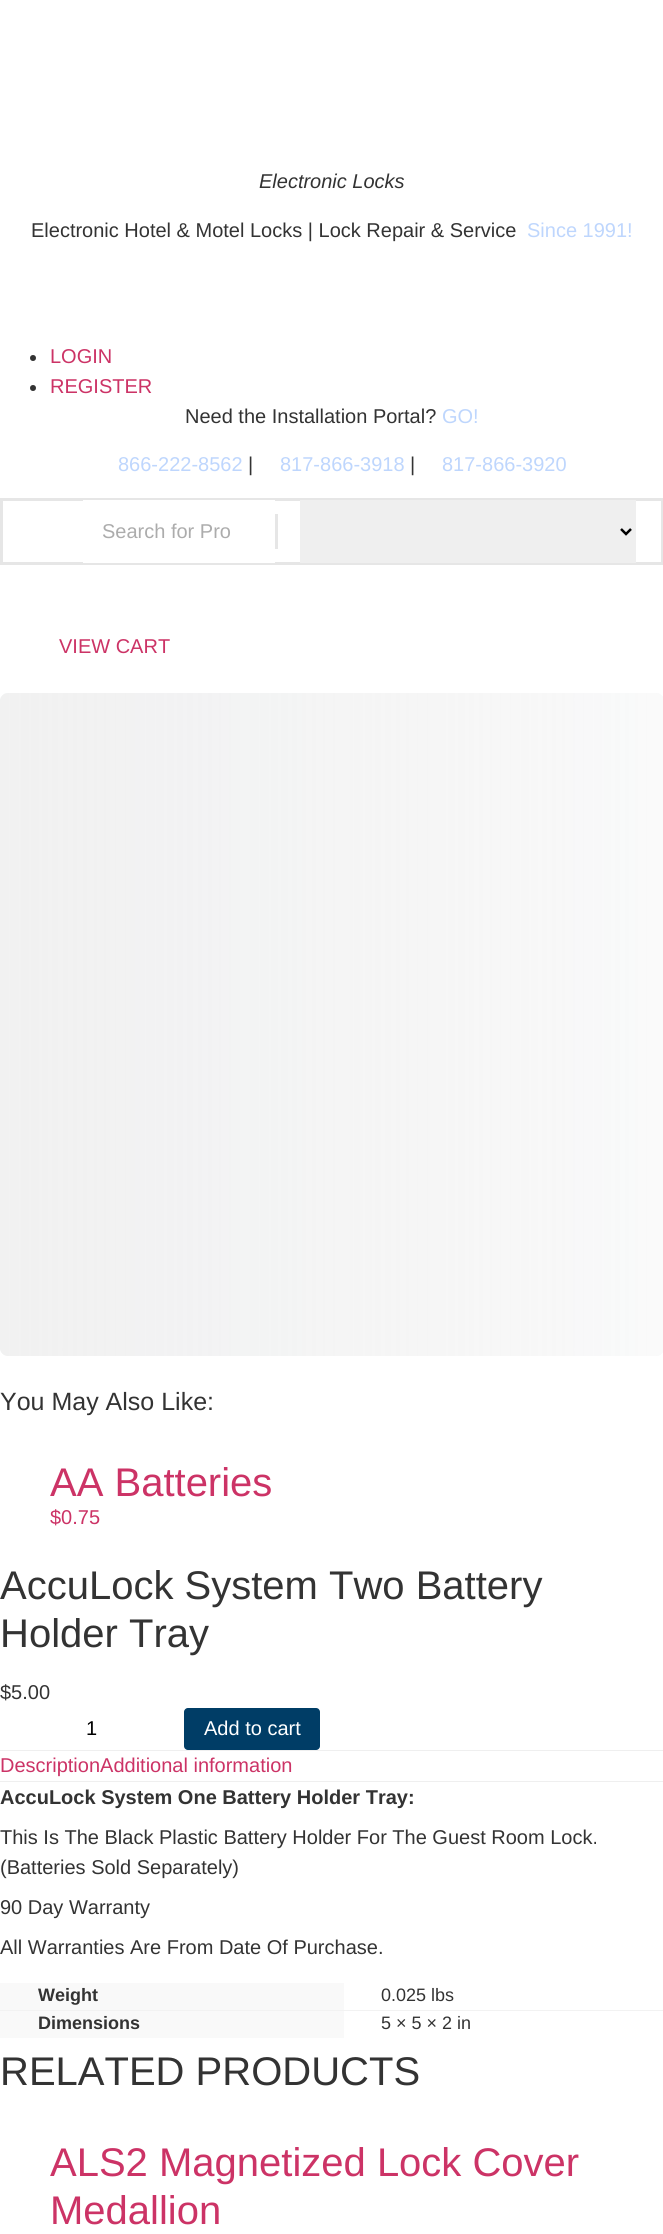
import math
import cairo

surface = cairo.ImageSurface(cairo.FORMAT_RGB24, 663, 2234)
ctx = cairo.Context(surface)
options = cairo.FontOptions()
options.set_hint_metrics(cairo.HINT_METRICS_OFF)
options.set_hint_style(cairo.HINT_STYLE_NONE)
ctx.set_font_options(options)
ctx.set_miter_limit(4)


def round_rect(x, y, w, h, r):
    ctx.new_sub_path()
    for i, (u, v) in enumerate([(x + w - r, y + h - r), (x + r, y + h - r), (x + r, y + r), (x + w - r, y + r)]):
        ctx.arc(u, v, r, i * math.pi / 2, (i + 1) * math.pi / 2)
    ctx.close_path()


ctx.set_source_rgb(1, 1, 1)
ctx.paint()
ctx.select_font_face("Liberation Sans", cairo.FONT_SLANT_ITALIC)
ctx.set_font_size(20)
ctx.set_source_rgb(0.2, 0.2, 0.2)
ctx.move_to(259, 188)
ctx.show_text("Electronic Locks")
ctx.select_font_face("Liberation Sans")
ctx.move_to(31, 237)
ctx.show_text("Electronic Hotel & Motel Locks | Lock Repair & Service")
ctx.set_source_rgb(0.745, 0.839, 0.992)
ctx.move_to(527, 237)
ctx.show_text("Since 1991!")
ctx.set_source_rgb(0.2, 0.2, 0.2)
ctx.new_path()
ctx.arc(33, 358, 3, 0, 2 * math.pi)
ctx.fill()
ctx.set_source_rgb(0.8, 0.2, 0.4)
ctx.move_to(50, 363)
ctx.show_text("LOGIN")
ctx.set_source_rgb(0.2, 0.2, 0.2)
ctx.new_path()
ctx.arc(33, 388, 3, 0, 2 * math.pi)
ctx.fill()
ctx.set_source_rgb(0.8, 0.2, 0.4)
ctx.move_to(50, 393)
ctx.show_text("REGISTER")
ctx.set_source_rgb(0.2, 0.2, 0.2)
ctx.move_to(185, 423)
ctx.show_text("Need the Installation Portal?")
ctx.set_source_rgb(0.745, 0.839, 0.992)
ctx.move_to(442, 423)
ctx.show_text("GO!")
ctx.move_to(118, 471)
ctx.show_text("866-222-8562")
ctx.set_source_rgb(0.2, 0.2, 0.2)
ctx.move_to(248, 471)
ctx.show_text("|")
ctx.set_source_rgb(0.745, 0.839, 0.992)
ctx.move_to(280, 471)
ctx.show_text("817-866-3918")
ctx.set_source_rgb(0.2, 0.2, 0.2)
ctx.move_to(410, 471)
ctx.show_text("|")
ctx.set_source_rgb(0.745, 0.839, 0.992)
ctx.move_to(442, 471)
ctx.show_text("817-866-3920")
ctx.rectangle(1.5, 499.5, 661, 64)
ctx.set_source_rgb(0.902, 0.902, 0.902)
ctx.set_line_width(3)
ctx.stroke()
ctx.set_source_rgb(1, 1, 1)
ctx.rectangle(83, 500, 192, 63)
ctx.fill()
ctx.set_source_rgb(0.675, 0.675, 0.675)
ctx.move_to(102, 538)
ctx.show_text("Search for Pro")
ctx.set_source_rgb(0.902, 0.902, 0.902)
ctx.rectangle(275, 514, 3, 35)
ctx.fill()
ctx.set_source_rgb(0.937, 0.937, 0.937)
ctx.rectangle(300, 500, 336, 63)
ctx.fill()
ctx.new_path()
ctx.move_to(621, 529)
ctx.line_to(626, 534)
ctx.line_to(631, 529)
ctx.set_source_rgb(0, 0, 0)
ctx.set_line_width(2.5)
ctx.stroke()
ctx.set_source_rgb(0.8, 0.2, 0.4)
ctx.move_to(59, 653)
ctx.show_text("VIEW CART")
ctx.set_source_rgb(0.965, 0.969, 0.973)
round_rect(0, 693, 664, 663, 8)
ctx.fill()
gradient = cairo.LinearGradient(0, 1024, 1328, 1024)
gradient.add_color_stop_rgba(0, 0.933, 0.933, 0.933, 0.7)
gradient.add_color_stop_rgba(0.5, 0.98, 0.98, 0.98, 0.95)
gradient.add_color_stop_rgba(1, 0.933, 0.933, 0.933, 0.7)
ctx.set_source(gradient)
round_rect(0, 693, 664, 663, 8)
ctx.fill()
ctx.set_font_size(25)
ctx.set_source_rgb(0.2, 0.2, 0.2)
ctx.move_to(0, 1410)
ctx.show_text("You May Also Like:")
ctx.set_font_size(40)
ctx.set_source_rgb(0.8, 0.2, 0.4)
ctx.move_to(50, 1496)
ctx.show_text("AA Batteries")
ctx.set_font_size(20)
ctx.move_to(50, 1524)
ctx.show_text("$0.75")
ctx.set_font_size(40)
ctx.set_source_rgb(0.2, 0.2, 0.2)
ctx.move_to(0, 1599)
ctx.show_text("AccuLock System Two Battery")
ctx.move_to(0, 1647)
ctx.show_text("Holder Tray")
ctx.set_font_size(20)
ctx.move_to(0, 1699)
ctx.show_text("$5.00")
ctx.set_source_rgb(0, 0, 0)
ctx.move_to(86, 1735)
ctx.show_text("1")
ctx.set_source_rgb(0, 0.239, 0.4)
round_rect(184, 1708, 136, 42, 4)
ctx.fill()
ctx.set_source_rgb(1, 1, 1)
ctx.move_to(204, 1735)
ctx.show_text("Add to cart")
ctx.set_source_rgb(0.937, 0.937, 0.937)
ctx.rectangle(0, 1750, 663, 1)
ctx.fill()
ctx.rectangle(0, 1781, 663, 1)
ctx.fill()
ctx.set_source_rgb(0.8, 0.2, 0.4)
ctx.move_to(0, 1772)
ctx.show_text("DescriptionAdditional information")
ctx.select_font_face("Liberation Sans", cairo.FONT_SLANT_NORMAL, cairo.FONT_WEIGHT_BOLD)
ctx.set_source_rgb(0.2, 0.2, 0.2)
ctx.move_to(0, 1804)
ctx.show_text("AccuLock System One Battery Holder Tray:")
ctx.select_font_face("Liberation Sans")
ctx.move_to(0, 1844)
ctx.show_text("This Is The Black Plastic Battery Holder For The Guest Room Lock.")
ctx.move_to(0, 1874)
ctx.show_text("(Batteries Sold Separately)")
ctx.move_to(0, 1914)
ctx.show_text("90 Day Warranty")
ctx.move_to(0, 1954)
ctx.show_text("All Warranties Are From Date Of Purchase.")
ctx.set_source_rgb(0.949, 0.949, 0.949)
ctx.rectangle(0, 2010, 663, 1)
ctx.fill()
ctx.set_source_rgb(0.973, 0.973, 0.973)
ctx.rectangle(0, 1983, 344, 27)
ctx.fill()
ctx.select_font_face("Liberation Sans", cairo.FONT_SLANT_NORMAL, cairo.FONT_WEIGHT_BOLD)
ctx.set_font_size(18)
ctx.set_source_rgb(0.2, 0.2, 0.2)
ctx.move_to(38, 2001)
ctx.show_text("Weight")
ctx.select_font_face("Liberation Sans")
ctx.move_to(381, 2001)
ctx.show_text("0.025 lbs")
ctx.set_source_rgb(0.973, 0.973, 0.973)
ctx.rectangle(0, 2011, 344, 27)
ctx.fill()
ctx.select_font_face("Liberation Sans", cairo.FONT_SLANT_NORMAL, cairo.FONT_WEIGHT_BOLD)
ctx.set_source_rgb(0.2, 0.2, 0.2)
ctx.move_to(38, 2029)
ctx.show_text("Dimensions")
ctx.select_font_face("Liberation Sans")
ctx.move_to(381, 2029)
ctx.show_text("5 × 5 × 2 in")
ctx.set_font_size(40)
ctx.move_to(0, 2085)
ctx.show_text("RELATED PRODUCTS")
ctx.set_source_rgb(0.8, 0.2, 0.4)
ctx.move_to(50, 2176)
ctx.show_text("ALS2 Magnetized Lock Cover")
ctx.move_to(50, 2224)
ctx.show_text("Medallion")
surface.write_to_png("page.png")
